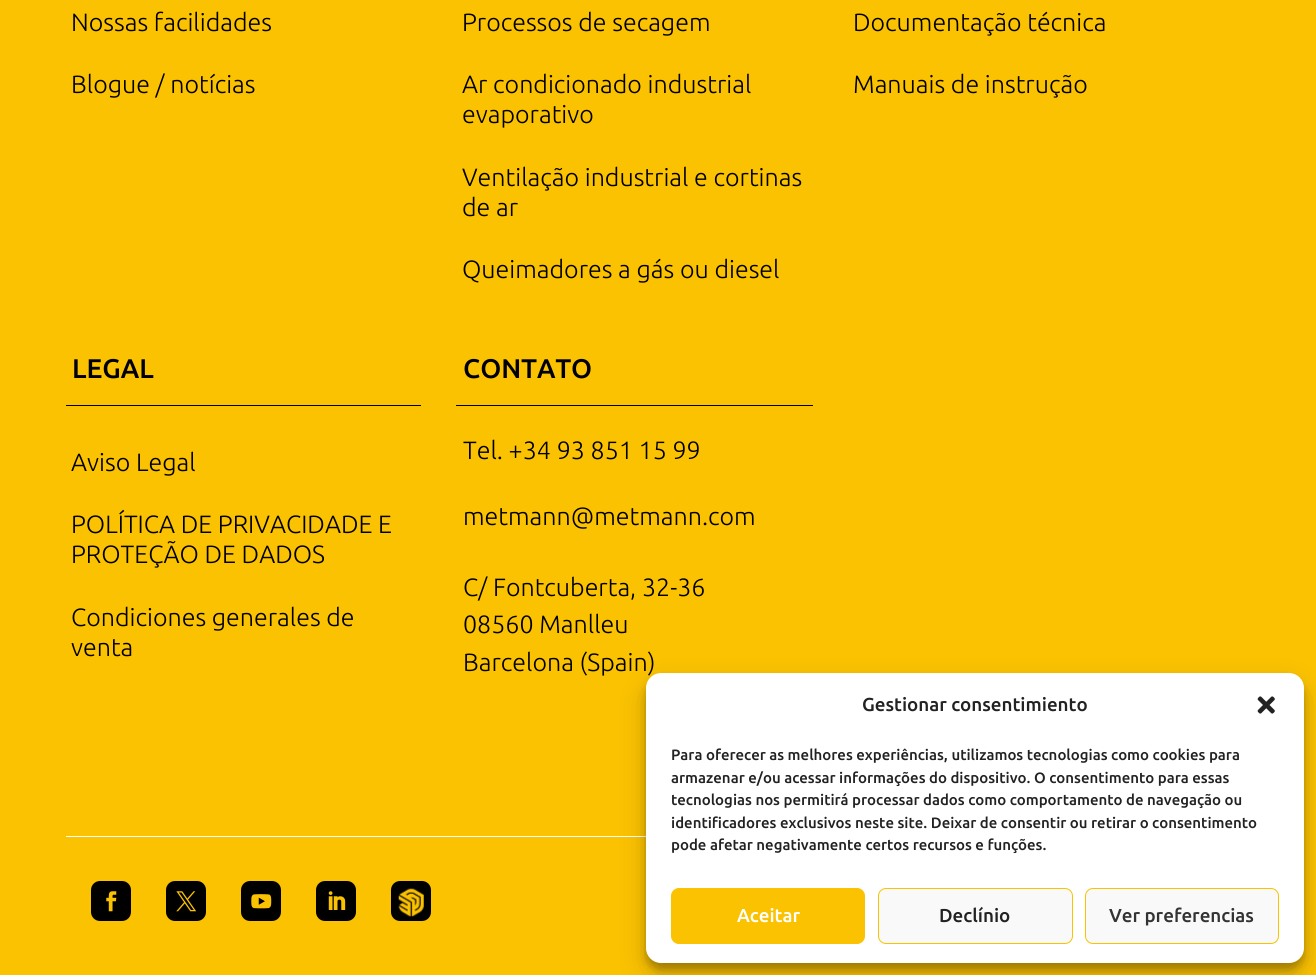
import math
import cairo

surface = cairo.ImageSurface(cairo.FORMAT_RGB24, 1316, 975)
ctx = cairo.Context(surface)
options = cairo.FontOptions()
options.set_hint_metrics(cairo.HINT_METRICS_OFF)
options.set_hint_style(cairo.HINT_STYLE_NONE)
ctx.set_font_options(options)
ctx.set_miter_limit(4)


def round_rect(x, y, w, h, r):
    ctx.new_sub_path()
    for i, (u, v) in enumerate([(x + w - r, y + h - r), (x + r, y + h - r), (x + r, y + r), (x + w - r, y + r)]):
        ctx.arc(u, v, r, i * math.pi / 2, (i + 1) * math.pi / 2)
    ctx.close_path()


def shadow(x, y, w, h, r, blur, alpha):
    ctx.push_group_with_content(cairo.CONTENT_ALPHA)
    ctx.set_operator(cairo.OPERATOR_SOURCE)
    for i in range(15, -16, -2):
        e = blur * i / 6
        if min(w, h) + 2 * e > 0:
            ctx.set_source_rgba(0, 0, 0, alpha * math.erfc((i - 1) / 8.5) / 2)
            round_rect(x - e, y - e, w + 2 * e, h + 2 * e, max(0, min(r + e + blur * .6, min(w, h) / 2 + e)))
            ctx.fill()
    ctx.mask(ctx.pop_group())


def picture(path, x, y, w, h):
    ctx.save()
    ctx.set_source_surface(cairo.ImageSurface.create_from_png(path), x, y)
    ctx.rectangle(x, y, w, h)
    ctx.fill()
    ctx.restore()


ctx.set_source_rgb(0.984, 0.761, 0.004)
ctx.paint()
ctx.select_font_face("Ubuntu Light")
ctx.set_font_size(25)
ctx.set_source_rgb(0, 0, 0)
ctx.move_to(71, 31)
ctx.show_text("Nossas facilidades")
ctx.move_to(71, 93)
ctx.show_text("Blogue / notícias")
ctx.move_to(462, 31)
ctx.show_text("Processos de secagem")
ctx.move_to(462, 93)
ctx.show_text("Ar condicionado industrial")
ctx.move_to(462, 123)
ctx.show_text("evaporativo")
ctx.move_to(462, 186)
ctx.show_text("Ventilação industrial e cortinas")
ctx.move_to(462, 216)
ctx.show_text("de ar")
ctx.move_to(462, 278)
ctx.show_text("Queimadores a gás ou diesel")
ctx.move_to(853, 31)
ctx.show_text("Documentação técnica")
ctx.move_to(853, 93)
ctx.show_text("Manuais de instrução")
ctx.rectangle(66, 405, 355, 1)
ctx.fill()
ctx.select_font_face("Ubuntu Medium")
ctx.set_font_size(27)
ctx.move_to(72, 378)
ctx.show_text("LEGAL")
ctx.select_font_face("Ubuntu Light")
ctx.set_font_size(25)
ctx.move_to(71, 471)
ctx.show_text("Aviso Legal")
ctx.move_to(71, 533)
ctx.show_text("POLÍTICA DE PRIVACIDADE E")
ctx.move_to(71, 563)
ctx.show_text("PROTEÇÃO DE DADOS")
ctx.move_to(71, 626)
ctx.show_text("Condiciones generales de")
ctx.move_to(71, 656)
ctx.show_text("venta")
ctx.rectangle(456, 405, 357, 1)
ctx.fill()
ctx.select_font_face("Ubuntu Medium")
ctx.set_font_size(27)
ctx.move_to(463, 378)
ctx.show_text("CONTATO")
ctx.select_font_face("Ubuntu Light")
ctx.set_font_size(25)
ctx.move_to(463, 459)
ctx.show_text("Tel. +34 93 851 15 99")
ctx.move_to(463, 525)
ctx.show_text("metmann@metmann.com")
ctx.move_to(463, 596)
ctx.show_text("C/ Fontcuberta, 32-36")
ctx.move_to(463, 633)
ctx.show_text("08560 Manlleu")
ctx.move_to(463, 671)
ctx.show_text("Barcelona (Spain)")
ctx.set_source_rgb(1, 1, 1)
ctx.rectangle(66, 836, 580, 1)
ctx.fill()
ctx.set_source_rgb(0, 0, 0)
round_rect(91, 881, 40, 40, 9)
ctx.fill()
picture("img1.png", 106, 891, 11, 21)
round_rect(166, 881, 40, 40, 9)
ctx.fill()
picture("img2.png", 176, 891, 21, 21)
round_rect(241, 881, 40, 40, 9)
ctx.fill()
picture("img3.png", 251, 894, 21, 15)
round_rect(316, 881, 40, 40, 9)
ctx.fill()
picture("img4.png", 328, 891, 18, 19)
round_rect(391, 881, 40, 40, 9)
ctx.fill()
picture("img5.png", 398, 888, 26, 29)
ctx.set_source_rgb(0, 0, 0)
shadow(646, 680, 658, 290, 15, 4, 0.23)
shadow(646, 685, 658, 290, 15, 12.5, 0.19)
ctx.set_source_rgb(1, 1, 1)
round_rect(646, 673, 658, 290, 15)
ctx.fill()
ctx.select_font_face("Ubuntu Medium")
ctx.set_font_size(18.75)
ctx.set_source_rgb(0.133, 0.133, 0.133)
ctx.move_to(862, 711)
ctx.show_text("Gestionar consentimiento")
picture("img6.png", 1257, 696, 18, 18)
ctx.set_font_size(15)
ctx.move_to(671, 760)
ctx.show_text("Para oferecer as melhores experiências, utilizamos tecnologias como cookies para")
ctx.move_to(671, 783)
ctx.show_text("armazenar e/ou acessar informações do dispositivo. O consentimento para essas")
ctx.move_to(671, 805)
ctx.show_text("tecnologias nos permitirá processar dados como comportamento de navegação ou")
ctx.move_to(671, 828)
ctx.show_text("identificadores exclusivos neste site. Deixar de consentir ou retirar o consentimento")
ctx.move_to(671, 850)
ctx.show_text("pode afetar negativamente certos recursos e funções.")
ctx.set_source_rgb(0.984, 0.761, 0.004)
round_rect(671.5, 888.5, 193, 55, 7.5)
ctx.fill_preserve()
ctx.set_line_width(1)
ctx.stroke()
ctx.set_font_size(18.75)
ctx.set_source_rgb(1, 1, 1)
ctx.move_to(737, 922)
ctx.show_text("Aceitar")
ctx.set_source_rgb(0.976, 0.976, 0.976)
round_rect(878.5, 888.5, 194, 55, 7.5)
ctx.fill_preserve()
ctx.set_source_rgb(0.984, 0.761, 0.004)
ctx.stroke()
ctx.set_source_rgb(0.133, 0.133, 0.133)
ctx.move_to(939, 922)
ctx.show_text("Declínio")
ctx.set_source_rgb(0.976, 0.976, 0.976)
round_rect(1085.5, 888.5, 193, 55, 7.5)
ctx.fill_preserve()
ctx.set_source_rgb(0.984, 0.761, 0.004)
ctx.stroke()
ctx.set_source_rgb(0.2, 0.2, 0.2)
ctx.move_to(1109, 922)
ctx.show_text("Ver preferencias")
surface.write_to_png("page.png")
